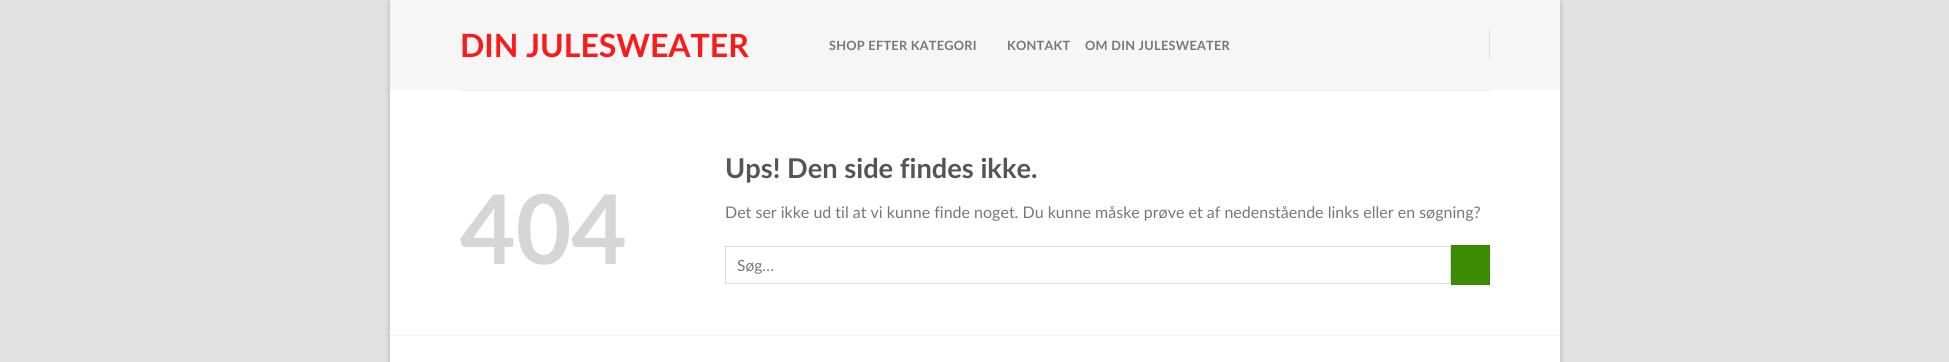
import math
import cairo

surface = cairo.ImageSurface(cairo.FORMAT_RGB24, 1949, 362)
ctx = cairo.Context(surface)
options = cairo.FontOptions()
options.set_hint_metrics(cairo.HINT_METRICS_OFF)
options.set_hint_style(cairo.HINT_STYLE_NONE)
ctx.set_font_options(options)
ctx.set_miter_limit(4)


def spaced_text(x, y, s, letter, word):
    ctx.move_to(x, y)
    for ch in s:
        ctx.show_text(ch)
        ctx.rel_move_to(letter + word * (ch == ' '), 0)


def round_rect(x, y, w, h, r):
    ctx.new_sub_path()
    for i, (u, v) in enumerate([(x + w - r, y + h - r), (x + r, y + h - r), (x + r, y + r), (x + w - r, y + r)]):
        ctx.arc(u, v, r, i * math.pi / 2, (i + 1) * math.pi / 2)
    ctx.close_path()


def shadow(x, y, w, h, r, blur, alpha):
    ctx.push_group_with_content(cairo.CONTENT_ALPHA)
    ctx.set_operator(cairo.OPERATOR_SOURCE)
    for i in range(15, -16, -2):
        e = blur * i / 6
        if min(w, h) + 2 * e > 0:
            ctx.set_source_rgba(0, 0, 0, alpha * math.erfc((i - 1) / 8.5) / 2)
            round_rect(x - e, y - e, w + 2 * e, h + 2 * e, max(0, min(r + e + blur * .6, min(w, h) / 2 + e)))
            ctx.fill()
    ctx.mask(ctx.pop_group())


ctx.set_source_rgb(0.886, 0.886, 0.886)
ctx.paint()
ctx.set_source_rgb(0, 0, 0)
shadow(390, 3, 1170, 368, 0, 3, 0.23)
ctx.set_source_rgb(1, 1, 1)
ctx.rectangle(390, 90, 1170, 272)
ctx.fill()
ctx.set_source_rgb(0.961, 0.961, 0.961)
ctx.rectangle(390, 0, 1170, 90)
ctx.fill()
ctx.select_font_face("Lato", cairo.FONT_SLANT_NORMAL, cairo.FONT_WEIGHT_BOLD)
ctx.set_font_size(32)
ctx.set_source_rgb(0.976, 0.102, 0.102)
ctx.move_to(460, 57)
ctx.show_text("DIN JULESWEATER")
ctx.set_font_size(12.75)
ctx.set_source_rgb(0.467, 0.467, 0.467)
spaced_text(829, 50, "SHOP EFTER KATEGORI", 0.25, 0)
spaced_text(1007, 50, "KONTAKT", 0.25, 0)
spaced_text(1085, 50, "OM DIN JULESWEATER", 0.25, 0)
ctx.set_source_rgb(0.867, 0.867, 0.867)
ctx.rectangle(1489, 30, 1, 30)
ctx.fill()
ctx.set_source_rgb(0.945, 0.945, 0.945)
ctx.rectangle(460, 90, 1030, 1)
ctx.fill()
ctx.set_font_size(96)
ctx.set_source_rgb(0.839, 0.839, 0.839)
ctx.move_to(460, 264)
ctx.show_text("404")
ctx.set_font_size(27.25)
ctx.set_source_rgb(0.333, 0.333, 0.333)
ctx.move_to(725, 178)
ctx.show_text("Ups! Den side findes ikke.")
ctx.select_font_face("Lato")
ctx.set_font_size(16)
ctx.set_source_rgb(0.467, 0.467, 0.467)
ctx.move_to(725, 218)
ctx.show_text("Det ser ikke ud til at vi kunne finde noget. Du kunne måske prøve et af nedenstående links eller en søgning?")
ctx.rectangle(725.5, 246.5, 725, 37)
ctx.set_source_rgb(0.867, 0.867, 0.867)
ctx.set_line_width(1)
ctx.stroke()
ctx.set_font_size(15.5)
ctx.set_source_rgb(0.467, 0.467, 0.467)
ctx.move_to(737, 271)
ctx.show_text("Søg…")
ctx.set_source_rgb(0.231, 0.549, 0.008)
ctx.rectangle(1451.5, 245.5, 38, 39)
ctx.fill_preserve()
ctx.set_source_rgb(0.22, 0.522, 0.008)
ctx.stroke()
ctx.set_source_rgb(0.949, 0.949, 0.949)
ctx.rectangle(390, 335, 1170, 1)
ctx.fill()
surface.write_to_png("page.png")
